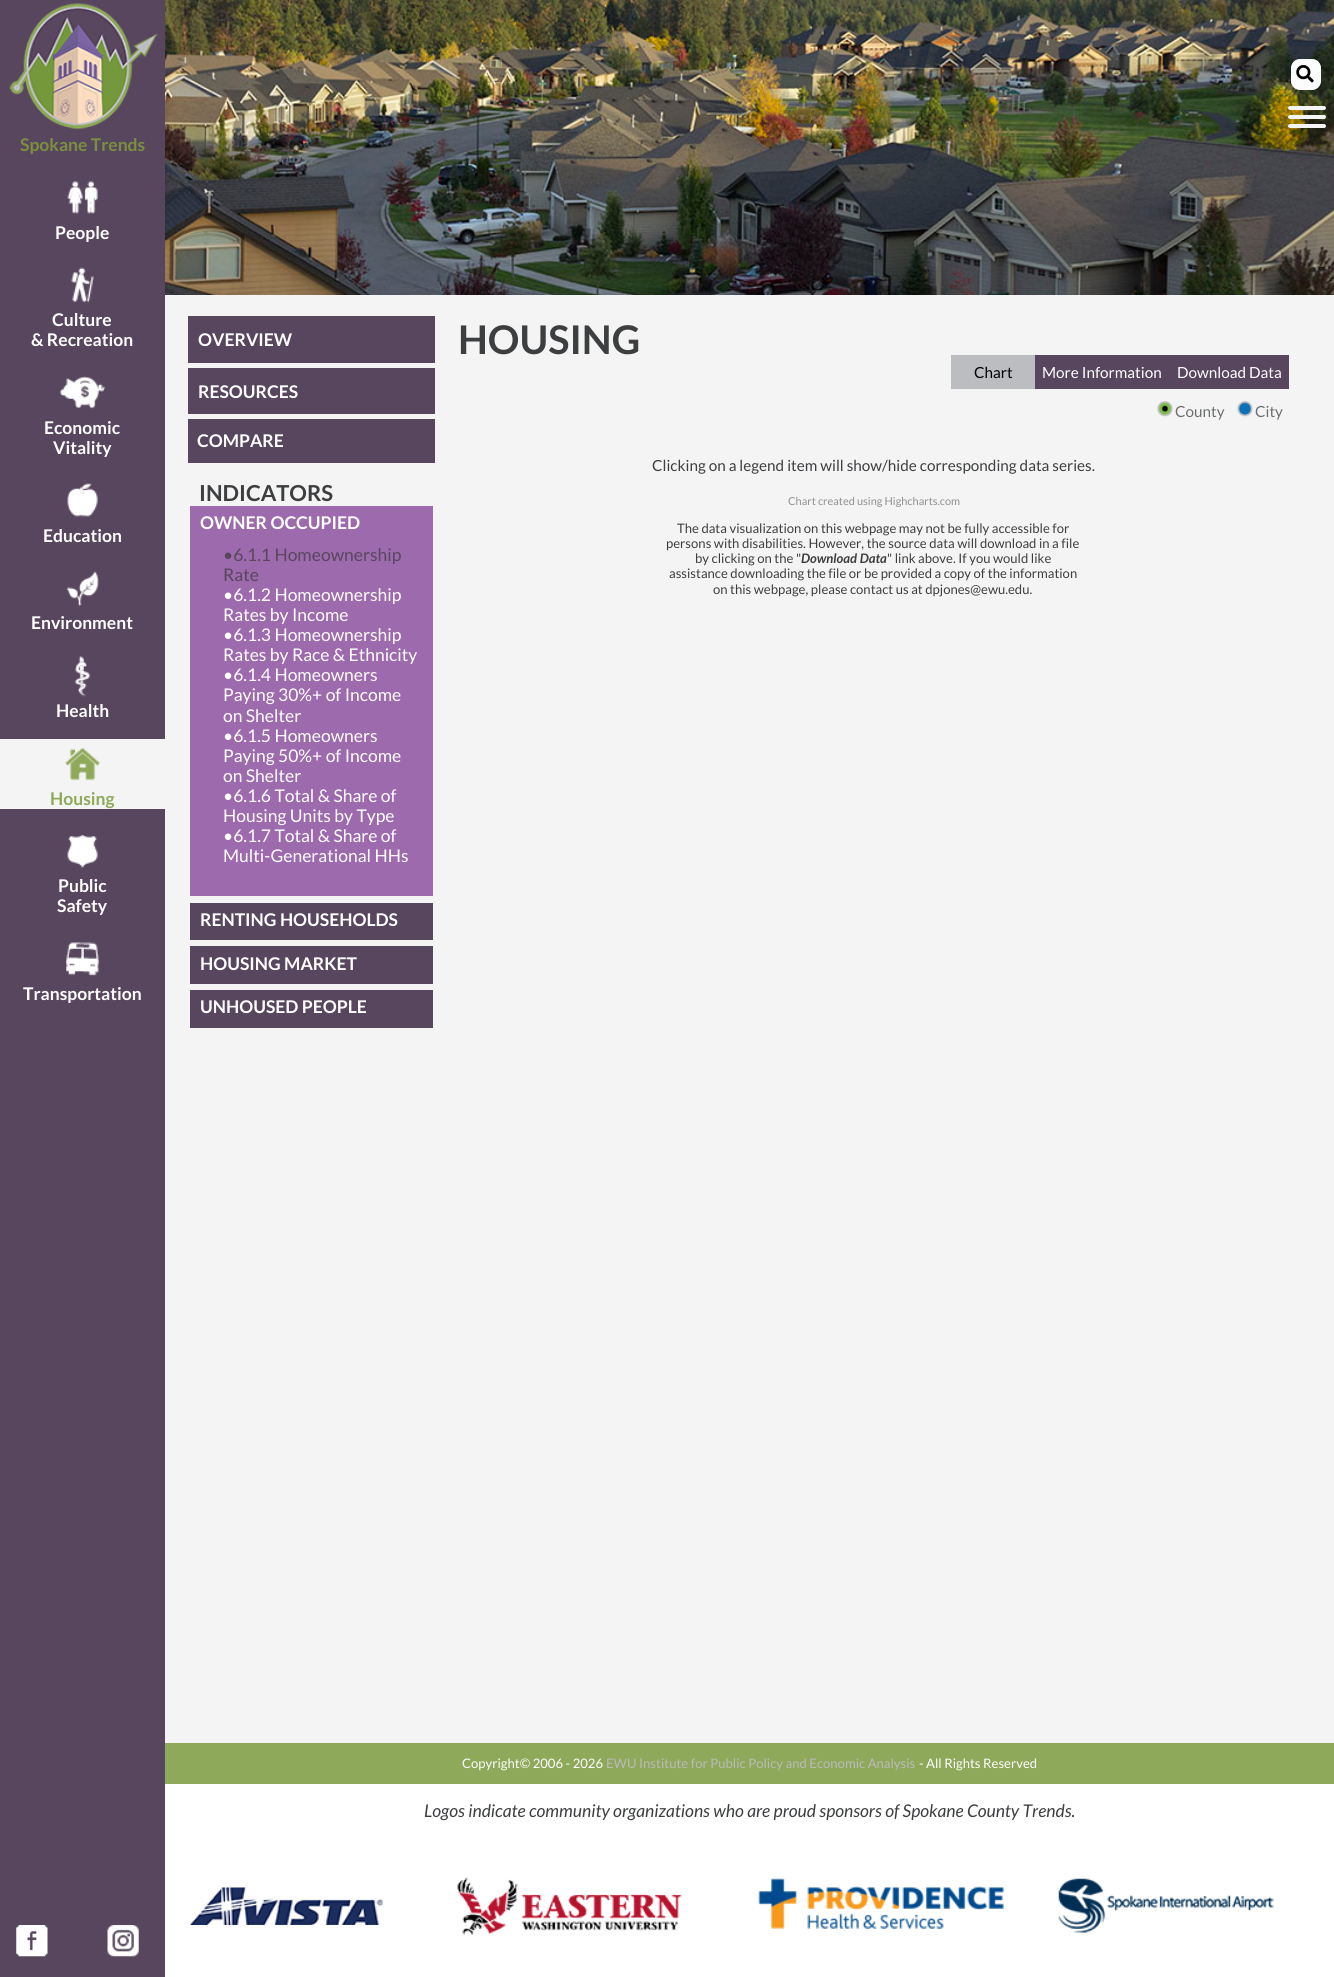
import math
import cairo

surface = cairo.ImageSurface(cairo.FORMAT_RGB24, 1334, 1977)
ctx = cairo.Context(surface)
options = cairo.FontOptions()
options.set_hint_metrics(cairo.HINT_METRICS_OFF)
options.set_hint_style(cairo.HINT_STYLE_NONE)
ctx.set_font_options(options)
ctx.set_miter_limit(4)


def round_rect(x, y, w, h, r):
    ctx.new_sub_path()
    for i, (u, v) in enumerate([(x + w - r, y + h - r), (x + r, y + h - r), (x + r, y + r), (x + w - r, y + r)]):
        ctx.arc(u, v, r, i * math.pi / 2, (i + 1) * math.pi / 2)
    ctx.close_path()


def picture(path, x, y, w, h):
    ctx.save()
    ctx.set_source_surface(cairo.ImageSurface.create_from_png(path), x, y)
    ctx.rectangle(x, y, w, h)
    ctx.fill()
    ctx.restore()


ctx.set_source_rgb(0.957, 0.957, 0.957)
ctx.paint()
ctx.set_source_rgb(0.345, 0.275, 0.369)
ctx.rectangle(0, 0, 165, 1977)
ctx.fill()
picture("img1.png", 9, 3, 149, 127)
ctx.select_font_face("Lato", cairo.FONT_SLANT_NORMAL, cairo.FONT_WEIGHT_BOLD)
ctx.set_font_size(17.5)
ctx.set_source_rgb(0.478, 0.565, 0.243)
ctx.move_to(20, 151)
ctx.show_text("Spokane Trends")
picture("img2.png", 67, 181, 31, 33)
ctx.set_source_rgb(1, 1, 1)
ctx.move_to(55, 239)
ctx.show_text("People")
picture("img3.png", 71, 267, 23, 36)
ctx.move_to(52, 326)
ctx.show_text("Culture")
ctx.move_to(31, 346)
ctx.show_text("& Recreation")
picture("img4.png", 59, 376, 47, 33)
ctx.move_to(44, 434)
ctx.show_text("Economic")
ctx.move_to(53, 454)
ctx.show_text("Vitality")
picture("img5.png", 67, 483, 31, 34)
ctx.move_to(43, 542)
ctx.show_text("Education")
picture("img6.png", 66, 571, 33, 36)
ctx.move_to(31, 629)
ctx.show_text("Environment")
picture("img7.png", 74, 656, 17, 41)
ctx.move_to(56, 717)
ctx.show_text("Health")
ctx.set_source_rgb(0.957, 0.957, 0.957)
ctx.rectangle(0, 739, 165, 70)
ctx.fill()
picture("img8.png", 65, 747, 36, 34)
ctx.set_source_rgb(0.557, 0.663, 0.349)
ctx.move_to(50, 805)
ctx.show_text("Housing")
picture("img9.png", 67, 834, 31, 34)
ctx.set_source_rgb(1, 1, 1)
ctx.move_to(58, 892)
ctx.show_text("Public")
ctx.move_to(57, 912)
ctx.show_text("Safety")
picture("img10.png", 66, 942, 33, 34)
ctx.move_to(23, 1000)
ctx.show_text("Transportation")
picture("img11.png", 16, 1925, 32, 32)
picture("img12.png", 107, 1925, 32, 32)
picture("img13.png", 165, 0, 1169, 295)
ctx.set_source_rgb(0.988, 0.988, 0.988)
round_rect(1291.5, 59.5, 29, 30, 8.5)
ctx.fill_preserve()
ctx.set_line_width(1)
ctx.stroke()
picture("img14.png", 1296, 65, 18, 18)
ctx.set_source_rgb(0.957, 0.957, 0.957)
round_rect(1288, 115, 38, 4, 2)
ctx.fill()
round_rect(1288, 106, 38, 4, 2)
ctx.fill()
round_rect(1288, 124, 38, 4, 2)
ctx.fill()
ctx.set_source_rgb(0.345, 0.275, 0.369)
ctx.rectangle(188, 316, 247, 47)
ctx.fill()
ctx.set_source_rgb(1, 1, 1)
ctx.move_to(198, 346)
ctx.show_text("OVERVIEW")
ctx.set_source_rgb(0.345, 0.275, 0.369)
ctx.rectangle(188, 368, 247, 46)
ctx.fill()
ctx.set_source_rgb(1, 1, 1)
ctx.move_to(198, 398)
ctx.show_text("RESOURCES")
ctx.set_source_rgb(0.345, 0.275, 0.369)
ctx.rectangle(188, 419, 247, 44)
ctx.fill()
ctx.set_source_rgb(1, 1, 1)
ctx.move_to(197, 447)
ctx.show_text("COMPARE")
ctx.set_font_size(22)
ctx.set_source_rgb(0.239, 0.243, 0.251)
ctx.move_to(199, 501)
ctx.show_text("INDICATORS")
ctx.set_source_rgb(0.616, 0.416, 0.678)
ctx.rectangle(190, 506, 243, 390)
ctx.fill()
ctx.set_font_size(17.5)
ctx.set_source_rgb(1, 1, 1)
ctx.move_to(200, 529)
ctx.show_text("OWNER OCCUPIED")
ctx.select_font_face("Lato")
ctx.set_source_rgb(0.345, 0.275, 0.369)
ctx.move_to(223, 561)
ctx.show_text("•6.1.1 Homeownership")
ctx.move_to(223, 581)
ctx.show_text("Rate")
ctx.set_source_rgb(1, 1, 1)
ctx.move_to(223, 601)
ctx.show_text("•6.1.2 Homeownership")
ctx.move_to(223, 621)
ctx.show_text("Rates by Income")
ctx.move_to(223, 641)
ctx.show_text("•6.1.3 Homeownership")
ctx.move_to(223, 661)
ctx.show_text("Rates by Race & Ethnicity")
ctx.move_to(223, 681)
ctx.show_text("•6.1.4 Homeowners")
ctx.move_to(223, 701)
ctx.show_text("Paying 30%+ of Income")
ctx.move_to(223, 722)
ctx.show_text("on Shelter")
ctx.move_to(223, 742)
ctx.show_text("•6.1.5 Homeowners")
ctx.move_to(223, 762)
ctx.show_text("Paying 50%+ of Income")
ctx.move_to(223, 782)
ctx.show_text("on Shelter")
ctx.move_to(223, 802)
ctx.show_text("•6.1.6 Total & Share of")
ctx.move_to(223, 822)
ctx.show_text("Housing Units by Type")
ctx.move_to(223, 842)
ctx.show_text("•6.1.7 Total & Share of")
ctx.move_to(223, 862)
ctx.show_text("Multi-Generational HHs")
ctx.set_source_rgb(0.345, 0.275, 0.369)
ctx.rectangle(190, 903, 243, 37)
ctx.fill()
ctx.select_font_face("Lato", cairo.FONT_SLANT_NORMAL, cairo.FONT_WEIGHT_BOLD)
ctx.set_source_rgb(1, 1, 1)
ctx.move_to(200, 926)
ctx.show_text("RENTING HOUSEHOLDS")
ctx.set_source_rgb(0.345, 0.275, 0.369)
ctx.rectangle(190, 946, 243, 38)
ctx.fill()
ctx.set_source_rgb(1, 1, 1)
ctx.move_to(200, 970)
ctx.show_text("HOUSING MARKET")
ctx.set_source_rgb(0.345, 0.275, 0.369)
ctx.rectangle(190, 990, 243, 38)
ctx.fill()
ctx.set_source_rgb(1, 1, 1)
ctx.move_to(200, 1013)
ctx.show_text("UNHOUSED PEOPLE")
ctx.set_font_size(39.5)
ctx.set_source_rgb(0.239, 0.243, 0.251)
ctx.move_to(458, 354)
ctx.show_text("HOUSING")
ctx.set_source_rgb(0.733, 0.741, 0.753)
ctx.rectangle(951, 355, 84, 34)
ctx.fill()
ctx.select_font_face("Lato")
ctx.set_font_size(15.3)
ctx.set_source_rgb(0, 0, 0)
ctx.move_to(974, 378)
ctx.show_text("Chart")
ctx.set_source_rgb(0.345, 0.275, 0.369)
ctx.rectangle(1035, 355, 254, 34)
ctx.fill()
ctx.set_source_rgb(1, 1, 1)
ctx.move_to(1042, 378)
ctx.show_text("More Information")
ctx.move_to(1177, 378)
ctx.show_text("Download Data")
picture("img15.png", 1157, 401, 16, 16)
ctx.set_source_rgb(0.427, 0.431, 0.439)
ctx.move_to(1175, 417)
ctx.show_text("County")
picture("img16.png", 1237, 401, 16, 16)
ctx.move_to(1255, 417)
ctx.show_text("City")
ctx.set_source_rgb(0.239, 0.243, 0.251)
ctx.move_to(652, 471)
ctx.show_text("Clicking on a legend item will show/hide corresponding data series.")
ctx.set_font_size(11)
ctx.set_source_rgb(0.565, 0.565, 0.565)
ctx.move_to(788, 505)
ctx.show_text("Chart created using Highcharts.com")
ctx.set_font_size(13.1)
ctx.set_source_rgb(0.239, 0.243, 0.251)
ctx.move_to(677, 533)
ctx.show_text("The data visualization on this webpage may not be fully accessible for")
ctx.move_to(666, 548)
ctx.show_text("persons with disabilities. However, the source data will download in a file")
ctx.move_to(695, 563)
ctx.show_text("by clicking on the \"")
ctx.select_font_face("Lato", cairo.FONT_SLANT_ITALIC, cairo.FONT_WEIGHT_BOLD)
ctx.move_to(801, 563)
ctx.show_text("Download Data")
ctx.select_font_face("Lato")
ctx.move_to(887, 563)
ctx.show_text("\" link above. If you would like")
ctx.move_to(669, 578)
ctx.show_text("assistance downloading the file or be provided a copy of the information")
ctx.move_to(713, 594)
ctx.show_text("on this webpage, please contact us at dpjones@ewu.edu.")
ctx.set_source_rgb(0.557, 0.663, 0.349)
ctx.rectangle(165, 1743, 1169, 41)
ctx.fill()
ctx.set_source_rgb(1, 1, 1)
ctx.move_to(462, 1768)
ctx.show_text("Copyright© 2006 - 2026")
ctx.set_source_rgb(0.733, 0.733, 0.733)
ctx.move_to(606, 1768)
ctx.show_text("EWU Institute for Public Policy and Economic Analysis")
ctx.set_source_rgb(1, 1, 1)
ctx.move_to(919, 1768)
ctx.show_text("- All Rights Reserved")
ctx.rectangle(165, 1784, 1169, 193)
ctx.fill()
ctx.select_font_face("Lato", cairo.FONT_SLANT_ITALIC)
ctx.set_font_size(17.5)
ctx.set_source_rgb(0.239, 0.243, 0.251)
ctx.move_to(424, 1817)
ctx.show_text("Logos indicate community organizations who are proud sponsors of Spokane County Trends.")
picture("img17.png", 190, 1887, 193, 38)
picture("img18.png", 457, 1877, 225, 59)
picture("img19.png", 758, 1878, 246, 51)
picture("img20.png", 1058, 1878, 216, 55)
surface.write_to_png("page.png")
